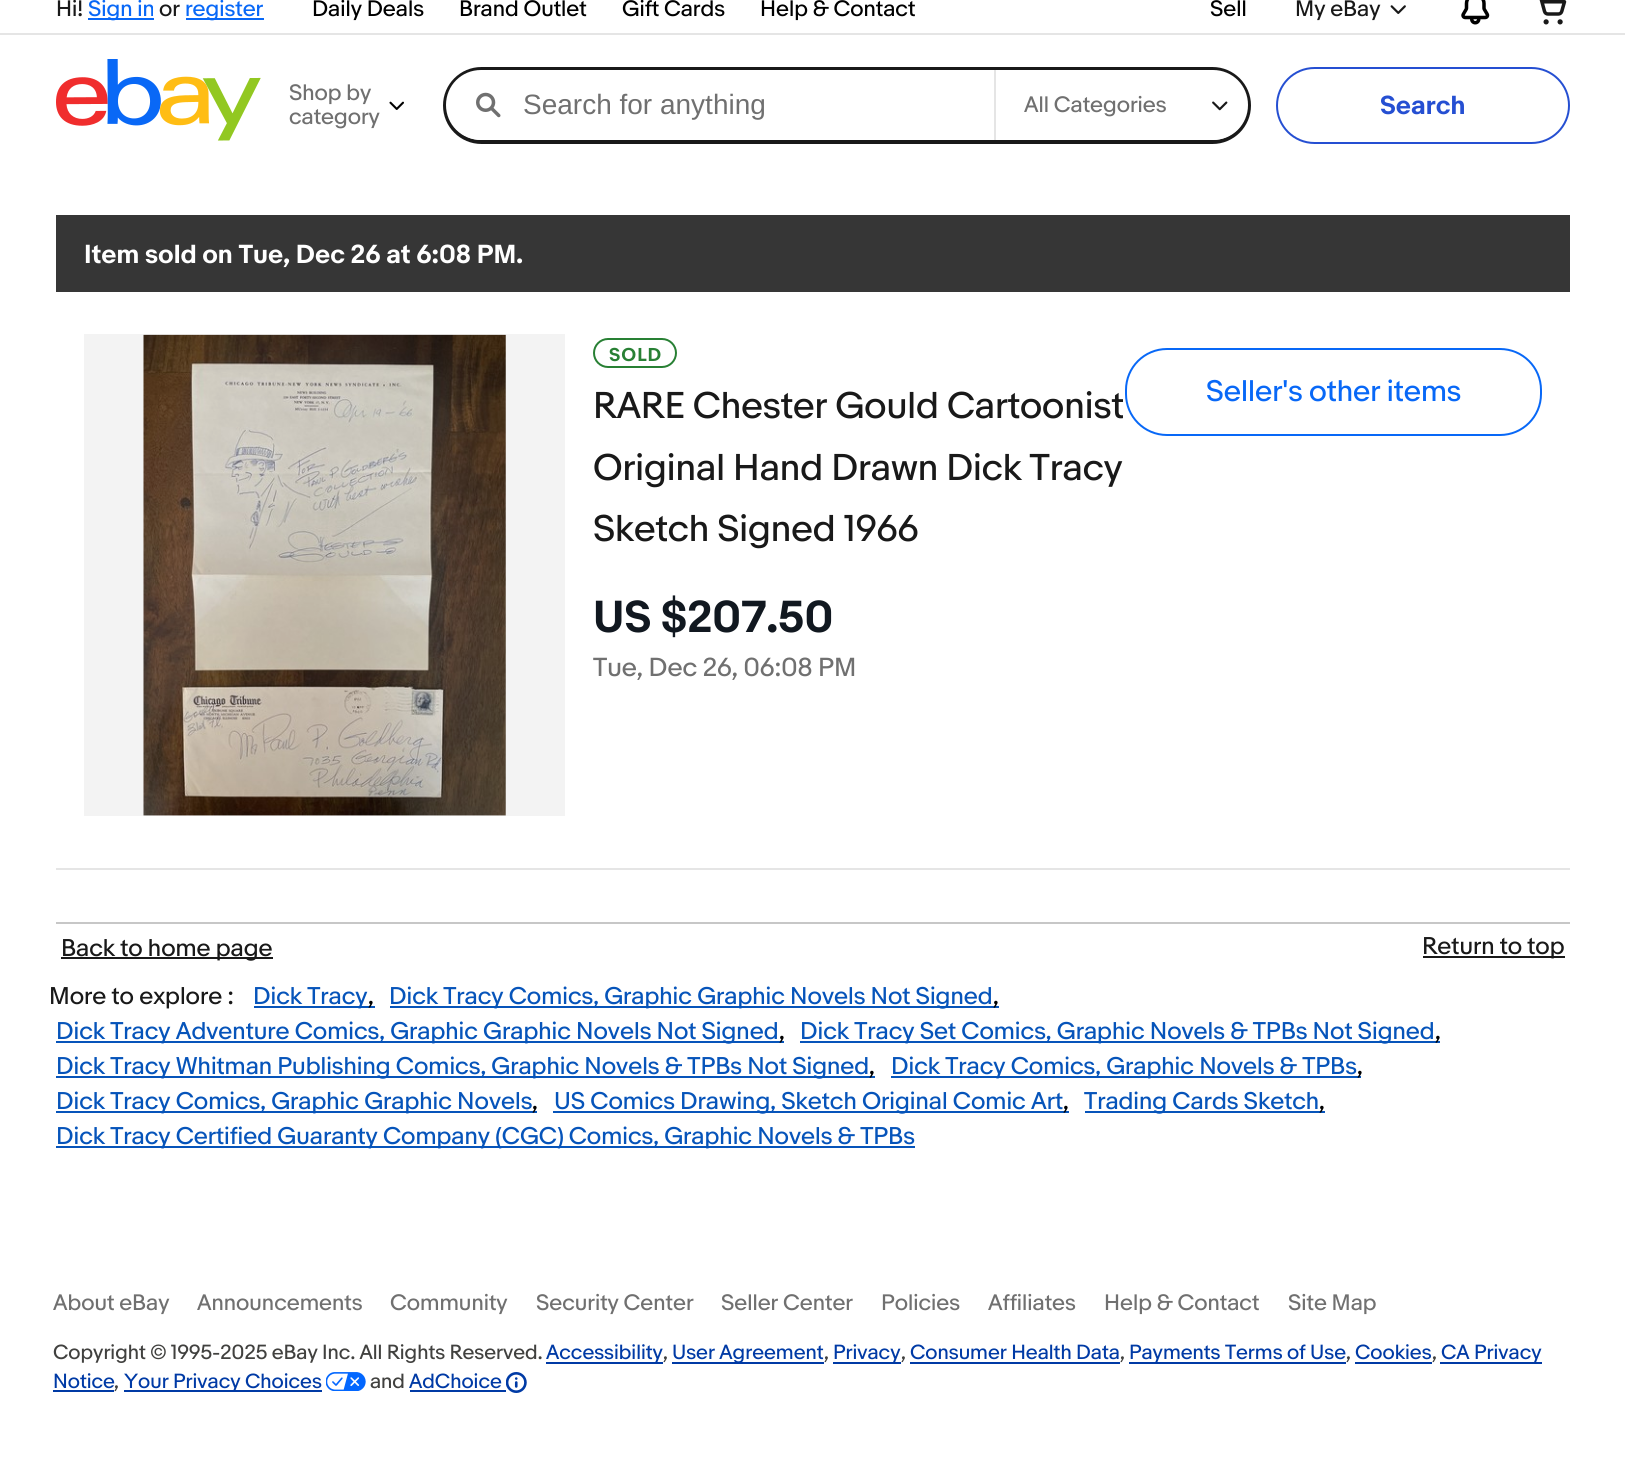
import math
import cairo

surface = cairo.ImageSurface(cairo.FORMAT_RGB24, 1625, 1459)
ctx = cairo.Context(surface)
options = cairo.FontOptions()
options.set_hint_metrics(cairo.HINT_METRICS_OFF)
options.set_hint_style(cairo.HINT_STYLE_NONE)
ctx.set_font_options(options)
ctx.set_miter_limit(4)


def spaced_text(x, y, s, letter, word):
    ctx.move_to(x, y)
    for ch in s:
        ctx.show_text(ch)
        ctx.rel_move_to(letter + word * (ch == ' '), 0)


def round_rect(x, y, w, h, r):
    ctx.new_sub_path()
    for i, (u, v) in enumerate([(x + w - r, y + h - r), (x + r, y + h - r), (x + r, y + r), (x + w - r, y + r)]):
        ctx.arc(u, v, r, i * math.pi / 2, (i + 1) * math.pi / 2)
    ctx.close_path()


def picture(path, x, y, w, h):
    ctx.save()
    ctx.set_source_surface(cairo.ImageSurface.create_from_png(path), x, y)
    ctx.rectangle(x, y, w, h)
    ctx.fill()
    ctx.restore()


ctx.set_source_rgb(1, 1, 1)
ctx.paint()
ctx.select_font_face("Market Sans")
ctx.set_font_size(21)
ctx.set_source_rgb(0.098, 0.098, 0.098)
ctx.move_to(56, 16)
ctx.show_text("Hi!")
ctx.set_source_rgb(0.035, 0.408, 0.965)
ctx.rectangle(88, 18, 66, 2)
ctx.fill()
ctx.move_to(88, 16)
ctx.show_text("Sign in")
ctx.set_source_rgb(0.098, 0.098, 0.098)
ctx.move_to(159, 16)
ctx.show_text("or")
ctx.set_source_rgb(0.035, 0.408, 0.965)
ctx.rectangle(186, 18, 78, 2)
ctx.fill()
ctx.move_to(185, 16)
ctx.show_text("register")
ctx.set_source_rgb(0, 0, 0)
ctx.move_to(312, 16)
ctx.show_text("Daily Deals")
ctx.move_to(459, 16)
ctx.show_text("Brand Outlet")
ctx.move_to(622, 16)
ctx.show_text("Gift Cards")
ctx.move_to(760, 16)
ctx.show_text("Help & Contact")
ctx.move_to(1210, 16)
ctx.show_text("Sell")
ctx.set_source_rgb(0.098, 0.098, 0.098)
ctx.move_to(1295, 16)
ctx.show_text("My eBay")
picture("img1.png", 1390, 5, 16, 9)
picture("img2.png", 1461, 0, 29, 25)
picture("img3.png", 1539, 0, 28, 25)
picture("img4.png", 56, 59, 205, 82)
ctx.set_source_rgb(0.439, 0.439, 0.439)
ctx.move_to(289, 100)
ctx.show_text("Shop by")
ctx.move_to(289, 124)
ctx.show_text("category")
picture("img5.png", 389, 101, 15, 9)
round_rect(445, 69, 804, 73, 36.5)
ctx.set_source_rgb(0.098, 0.098, 0.098)
ctx.set_line_width(4)
ctx.stroke()
ctx.set_source_rgb(0.898, 0.898, 0.898)
ctx.rectangle(994, 70, 2, 70)
ctx.fill()
ctx.set_source_rgb(1, 1, 1)
ctx.new_path()
ctx.move_to(481, 70)
ctx.line_to(994, 70)
ctx.line_to(994, 140)
ctx.line_to(481, 140)
ctx.curve_to(461.5, 140, 446, 124.5, 446, 105)
ctx.curve_to(446, 85.5, 461.5, 70, 481, 70)
ctx.close_path()
ctx.fill()
picture("img6.png", 476, 92, 25, 26)
ctx.select_font_face("Liberation Sans")
ctx.set_font_size(28)
ctx.set_source_rgb(0.439, 0.439, 0.439)
ctx.move_to(523, 114)
ctx.show_text("Search for anything")
ctx.set_source_rgb(1, 1, 1)
ctx.new_path()
ctx.move_to(996, 70)
ctx.line_to(1213, 70)
ctx.curve_to(1232.5, 70, 1248, 85.5, 1248, 105)
ctx.curve_to(1248, 124.5, 1232.5, 140, 1213, 140)
ctx.line_to(996, 140)
ctx.close_path()
ctx.fill()
picture("img7.png", 1212, 101, 16, 10)
ctx.select_font_face("Market Sans")
ctx.set_font_size(21)
ctx.set_source_rgb(0.439, 0.439, 0.439)
ctx.move_to(1024, 112)
ctx.show_text("All Categories")
round_rect(1277, 68, 292, 75, 37.5)
ctx.set_source_rgb(0.145, 0.31, 0.824)
ctx.set_line_width(2)
ctx.stroke()
ctx.select_font_face("Market Sans", cairo.FONT_SLANT_NORMAL, cairo.FONT_WEIGHT_BOLD)
ctx.set_font_size(24.5)
ctx.move_to(1380, 114)
ctx.show_text("Search")
ctx.set_source_rgb(0.212, 0.212, 0.212)
ctx.rectangle(56, 215, 1514, 77)
ctx.fill()
ctx.set_source_rgb(1, 1, 1)
ctx.move_to(84, 263)
ctx.show_text("Item sold on Tue, Dec 26 at 6:08 PM.")
ctx.set_source_rgb(0.898, 0.898, 0.898)
ctx.rectangle(56, 868, 1514, 2)
ctx.fill()
picture("img8.png", 143, 334, 363, 482)
ctx.set_source_rgba(0, 0, 0, 0.05)
ctx.rectangle(84, 334, 481, 482)
ctx.fill()
round_rect(594, 339, 82, 28, 14)
ctx.set_source_rgb(0.157, 0.502, 0.204)
ctx.stroke()
ctx.set_font_size(17.5)
spaced_text(609, 361, "SOLD", 1, 0)
ctx.select_font_face("Market Sans")
ctx.set_font_size(35)
ctx.set_source_rgb(0.098, 0.098, 0.098)
ctx.move_to(593, 418)
ctx.show_text("RARE Chester Gould Cartoonist")
ctx.move_to(593, 480)
ctx.show_text("Original Hand Drawn Dick Tracy")
ctx.move_to(593, 541)
ctx.show_text("Sketch Signed 1966")
ctx.select_font_face("Market Sans", cairo.FONT_SLANT_NORMAL, cairo.FONT_WEIGHT_BOLD)
ctx.set_font_size(42)
ctx.set_source_rgb(0.067, 0.094, 0.125)
ctx.move_to(593, 632)
ctx.show_text("US $207.50")
ctx.select_font_face("Market Sans")
ctx.set_font_size(24.5)
ctx.set_source_rgb(0.439, 0.439, 0.439)
ctx.move_to(593, 676)
ctx.show_text("Tue, Dec 26, 06:08 PM")
round_rect(1126, 349, 415, 86, 41)
ctx.set_source_rgb(0.035, 0.408, 0.965)
ctx.stroke()
ctx.set_font_size(28)
ctx.move_to(1206, 401)
ctx.show_text("Seller's other items")
ctx.set_source_rgb(0.78, 0.78, 0.78)
ctx.rectangle(56, 922, 1514, 2)
ctx.fill()
ctx.set_source_rgb(0.098, 0.098, 0.098)
ctx.rectangle(61, 957, 212, 2)
ctx.fill()
ctx.set_font_size(22.75)
ctx.move_to(61, 956)
ctx.show_text("Back to home page")
ctx.rectangle(1423, 956, 142, 2)
ctx.fill()
ctx.move_to(1422, 954)
ctx.show_text("Return to top")
ctx.set_source_rgb(0.024, 0.329, 0.729)
ctx.rectangle(254, 1006, 121, 2)
ctx.fill()
ctx.move_to(253, 1004)
ctx.show_text("Dick Tracy")
ctx.set_source_rgb(0, 0, 0)
ctx.move_to(368, 1004)
ctx.show_text(",")
ctx.set_source_rgb(0.024, 0.329, 0.729)
ctx.rectangle(390, 1006, 609, 2)
ctx.fill()
ctx.move_to(389, 1004)
ctx.show_text("Dick Tracy Comics, Graphic Graphic Novels Not Signed")
ctx.set_source_rgb(0, 0, 0)
ctx.move_to(993, 1004)
ctx.show_text(",")
ctx.set_source_rgb(0.024, 0.329, 0.729)
ctx.rectangle(56, 1041, 728, 2)
ctx.fill()
ctx.move_to(56, 1039)
ctx.show_text("Dick Tracy Adventure Comics, Graphic Graphic Novels Not Signed")
ctx.set_source_rgb(0, 0, 0)
ctx.move_to(779, 1039)
ctx.show_text(",")
ctx.set_source_rgb(0.024, 0.329, 0.729)
ctx.rectangle(800, 1041, 640, 2)
ctx.fill()
ctx.move_to(800, 1039)
ctx.show_text("Dick Tracy Set Comics, Graphic Novels & TPBs Not Signed")
ctx.set_source_rgb(0, 0, 0)
ctx.move_to(1435, 1039)
ctx.show_text(",")
ctx.set_source_rgb(0.024, 0.329, 0.729)
ctx.rectangle(56, 1076, 819, 2)
ctx.fill()
ctx.move_to(56, 1074)
ctx.show_text("Dick Tracy Whitman Publishing Comics, Graphic Novels & TPBs Not Signed")
ctx.set_source_rgb(0, 0, 0)
ctx.move_to(869, 1074)
ctx.show_text(",")
ctx.set_source_rgb(0.024, 0.329, 0.729)
ctx.rectangle(891, 1076, 470, 2)
ctx.fill()
ctx.move_to(891, 1074)
ctx.show_text("Dick Tracy Comics, Graphic Novels & TPBs")
ctx.set_source_rgb(0, 0, 0)
ctx.move_to(1357, 1074)
ctx.show_text(",")
ctx.set_source_rgb(0.024, 0.329, 0.729)
ctx.rectangle(56, 1111, 481, 2)
ctx.fill()
ctx.move_to(56, 1109)
ctx.show_text("Dick Tracy Comics, Graphic Graphic Novels")
ctx.set_source_rgb(0, 0, 0)
ctx.move_to(532, 1109)
ctx.show_text(",")
ctx.set_source_rgb(0.024, 0.329, 0.729)
ctx.rectangle(553, 1111, 509, 2)
ctx.fill()
ctx.move_to(554, 1109)
ctx.show_text("US Comics Drawing, Sketch Original Comic Art")
ctx.rectangle(1062, 1111, 7, 2)
ctx.fill()
ctx.set_source_rgb(0, 0, 0)
ctx.move_to(1063, 1109)
ctx.show_text(",")
ctx.set_source_rgb(0.024, 0.329, 0.729)
ctx.rectangle(1085, 1111, 240, 2)
ctx.fill()
ctx.move_to(1084, 1109)
ctx.show_text("Trading Cards Sketch")
ctx.set_source_rgb(0, 0, 0)
ctx.move_to(1319, 1109)
ctx.show_text(",")
ctx.set_source_rgb(0.024, 0.329, 0.729)
ctx.rectangle(56, 1146, 859, 2)
ctx.fill()
ctx.move_to(56, 1144)
ctx.show_text("Dick Tracy Certified Guaranty Company (CGC) Comics, Graphic Novels & TPBs")
ctx.set_source_rgb(0.098, 0.098, 0.098)
ctx.move_to(49, 1004)
ctx.show_text("More to explore :")
ctx.set_source_rgb(0.898, 0.898, 0.898)
ctx.rectangle(0, 33, 1625, 2)
ctx.fill()
ctx.set_font_size(21)
ctx.set_source_rgb(0.439, 0.439, 0.439)
ctx.move_to(53, 1310)
ctx.show_text("About eBay")
ctx.move_to(197, 1310)
ctx.show_text("Announcements")
ctx.move_to(390, 1310)
ctx.show_text("Community")
ctx.move_to(536, 1310)
ctx.show_text("Security Center")
ctx.move_to(721, 1310)
ctx.show_text("Seller Center")
ctx.move_to(881, 1310)
ctx.show_text("Policies")
ctx.move_to(988, 1310)
ctx.show_text("Affiliates")
ctx.move_to(1104, 1310)
ctx.show_text("Help & Contact")
ctx.move_to(1288, 1310)
ctx.show_text("Site Map")
ctx.set_font_size(19.25)
ctx.set_source_rgb(0.255, 0.255, 0.247)
ctx.move_to(53, 1359)
ctx.show_text("Copyright © 1995-2025 eBay Inc. All Rights Reserved.")
ctx.set_source_rgb(0, 0.227, 0.647)
ctx.rectangle(546, 1362, 117, 2)
ctx.fill()
ctx.move_to(546, 1359)
ctx.show_text("Accessibility")
ctx.set_source_rgb(0.255, 0.255, 0.247)
ctx.move_to(663, 1359)
ctx.show_text(",")
ctx.set_source_rgb(0, 0.227, 0.647)
ctx.rectangle(672, 1362, 152, 2)
ctx.fill()
ctx.move_to(672, 1359)
ctx.show_text("User Agreement")
ctx.set_source_rgb(0.255, 0.255, 0.247)
ctx.move_to(824, 1359)
ctx.show_text(",")
ctx.set_source_rgb(0, 0.227, 0.647)
ctx.rectangle(833, 1362, 68, 2)
ctx.fill()
ctx.move_to(833, 1359)
ctx.show_text("Privacy")
ctx.set_source_rgb(0.255, 0.255, 0.247)
ctx.move_to(901, 1359)
ctx.show_text(",")
ctx.set_source_rgb(0, 0.227, 0.647)
ctx.move_to(910, 1359)
ctx.show_text("Consumer Health Data")
ctx.rectangle(910, 1362, 210, 2)
ctx.fill()
ctx.set_source_rgb(0.255, 0.255, 0.247)
ctx.move_to(1120, 1359)
ctx.show_text(",")
ctx.set_source_rgb(0, 0.227, 0.647)
ctx.rectangle(1129, 1362, 217, 2)
ctx.fill()
ctx.move_to(1129, 1359)
ctx.show_text("Payments Terms of Use")
ctx.set_source_rgb(0.255, 0.255, 0.247)
ctx.move_to(1346, 1359)
ctx.show_text(",")
ctx.set_source_rgb(0, 0.227, 0.647)
ctx.move_to(1355, 1359)
ctx.show_text("Cookies")
ctx.rectangle(1355, 1362, 77, 2)
ctx.fill()
ctx.set_source_rgb(0.255, 0.255, 0.247)
ctx.move_to(1432, 1359)
ctx.show_text(",")
ctx.set_source_rgb(0, 0.227, 0.647)
ctx.rectangle(1440, 1362, 102, 2)
ctx.fill()
ctx.move_to(1441, 1359)
ctx.show_text("CA Privacy")
ctx.move_to(53, 1388)
ctx.show_text("Notice")
ctx.rectangle(53, 1390, 61, 2)
ctx.fill()
ctx.set_source_rgb(0.255, 0.255, 0.247)
ctx.move_to(114, 1388)
ctx.show_text(",")
ctx.set_source_rgb(0, 0.227, 0.647)
ctx.rectangle(124, 1390, 198, 2)
ctx.fill()
ctx.move_to(124, 1388)
ctx.show_text("Your Privacy Choices")
picture("img9.png", 326, 1372, 40, 19)
ctx.set_source_rgb(0.255, 0.255, 0.247)
ctx.move_to(370, 1388)
ctx.show_text("and")
ctx.set_source_rgb(0, 0.227, 0.647)
ctx.move_to(409, 1388)
ctx.show_text("AdChoice")
ctx.rectangle(410, 1390, 96, 2)
ctx.fill()
picture("img10.png", 506, 1372, 21, 21)
surface.write_to_png("page.png")
